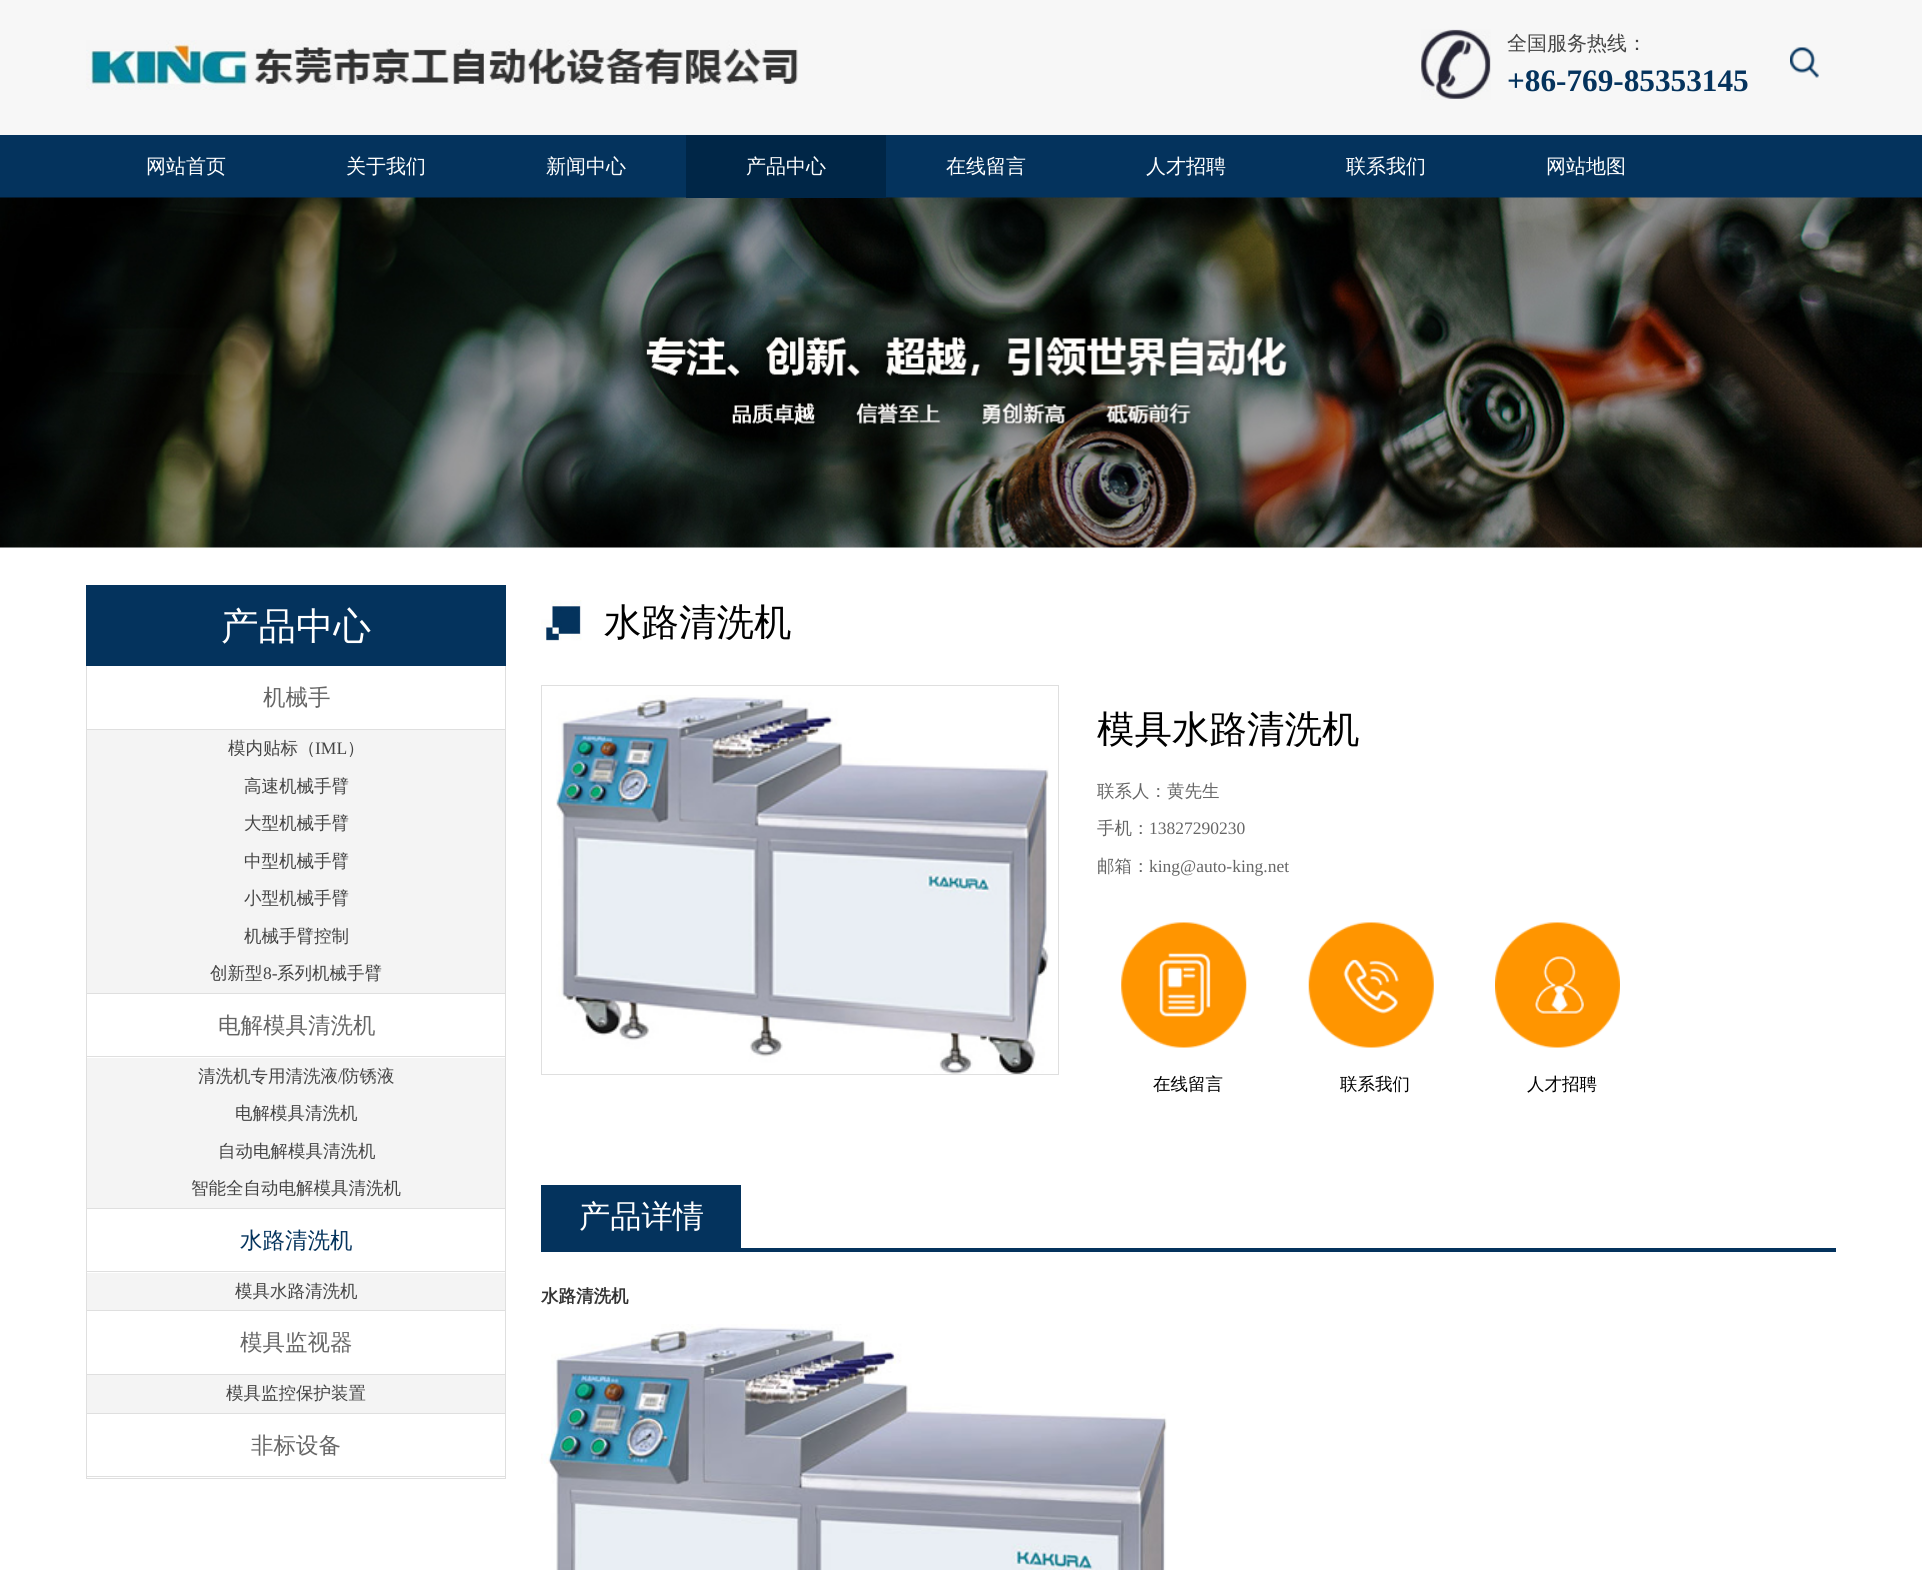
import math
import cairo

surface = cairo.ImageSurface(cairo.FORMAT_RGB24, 1922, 1570)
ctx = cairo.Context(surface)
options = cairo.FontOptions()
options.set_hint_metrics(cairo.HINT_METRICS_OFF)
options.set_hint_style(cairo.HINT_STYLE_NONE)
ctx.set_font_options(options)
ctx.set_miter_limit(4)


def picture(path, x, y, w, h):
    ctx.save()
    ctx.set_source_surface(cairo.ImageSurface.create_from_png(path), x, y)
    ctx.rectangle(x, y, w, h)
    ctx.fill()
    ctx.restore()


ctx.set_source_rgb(1, 1, 1)
ctx.paint()
ctx.set_source_rgb(0.965, 0.965, 0.965)
ctx.rectangle(0, 0, 1922, 135)
ctx.fill()
picture("img1.png", 86, 40, 712, 50)
picture("img2.png", 1421, 29, 70, 71)
ctx.select_font_face("WenQuanYi Zen Hei Medium")
ctx.set_font_size(20)
ctx.set_source_rgb(0.267, 0.267, 0.267)
ctx.move_to(1507, 50)
ctx.show_text("全国服务热线：")
ctx.select_font_face("Liberation Serif", cairo.FONT_SLANT_NORMAL, cairo.FONT_WEIGHT_BOLD)
ctx.set_font_size(31.25)
ctx.set_source_rgb(0.016, 0.2, 0.365)
ctx.move_to(1507, 91)
ctx.show_text("+86-769-85353145")
picture("img3.png", 1790, 47, 29, 31)
ctx.rectangle(0, 135, 1922, 63)
ctx.fill()
ctx.select_font_face("WenQuanYi Zen Hei Medium")
ctx.set_font_size(20)
ctx.set_source_rgb(1, 1, 1)
ctx.move_to(146, 173)
ctx.show_text("网站首页")
ctx.move_to(346, 173)
ctx.show_text("关于我们")
ctx.move_to(546, 173)
ctx.show_text("新闻中心")
picture("img4.png", 0, 197, 1922, 351)
ctx.set_source_rgb(0, 0.149, 0.278)
ctx.rectangle(686, 135, 200, 63)
ctx.fill()
ctx.set_source_rgb(1, 1, 1)
ctx.move_to(746, 173)
ctx.show_text("产品中心")
ctx.move_to(946, 173)
ctx.show_text("在线留言")
ctx.move_to(1146, 173)
ctx.show_text("人才招聘")
ctx.move_to(1346, 173)
ctx.show_text("联系我们")
ctx.move_to(1546, 173)
ctx.show_text("网站地图")
ctx.set_source_rgb(0.016, 0.2, 0.365)
ctx.rectangle(86, 585, 420, 81)
ctx.fill()
ctx.set_font_size(37.5)
ctx.set_source_rgb(1, 1, 1)
ctx.move_to(221, 639)
ctx.show_text("产品中心")
ctx.set_source_rgb(0.875, 0.875, 0.875)
ctx.rectangle(505, 666, 1, 812)
ctx.fill()
ctx.rectangle(86, 729, 420, 1)
ctx.fill()
ctx.rectangle(86, 666, 1, 64)
ctx.fill()
ctx.set_font_size(22.5)
ctx.set_source_rgb(0.4, 0.4, 0.4)
ctx.move_to(263, 705)
ctx.show_text("机械手")
ctx.set_source_rgb(0.957, 0.957, 0.957)
ctx.rectangle(87, 730, 418, 263)
ctx.fill()
ctx.set_source_rgb(0.875, 0.875, 0.875)
ctx.rectangle(86, 993, 420, 1)
ctx.fill()
ctx.rectangle(86, 730, 1, 264)
ctx.fill()
ctx.set_font_size(17.5)
ctx.set_source_rgb(0.267, 0.267, 0.267)
ctx.move_to(228, 754)
ctx.show_text("模内贴标（")
ctx.select_font_face("Liberation Serif")
ctx.move_to(315, 754)
ctx.show_text("IML")
ctx.select_font_face("WenQuanYi Zen Hei Medium")
ctx.move_to(347, 754)
ctx.show_text("）")
ctx.move_to(244, 792)
ctx.show_text("高速机械手臂")
ctx.move_to(244, 829)
ctx.show_text("大型机械手臂")
ctx.move_to(244, 867)
ctx.show_text("中型机械手臂")
ctx.move_to(244, 904)
ctx.show_text("小型机械手臂")
ctx.move_to(244, 942)
ctx.show_text("机械手臂控制")
ctx.move_to(210, 979)
ctx.show_text("创新型")
ctx.select_font_face("Liberation Serif")
ctx.move_to(263, 979)
ctx.show_text("8-")
ctx.select_font_face("WenQuanYi Zen Hei Medium")
ctx.move_to(277, 979)
ctx.show_text("系列机械手臂")
ctx.set_source_rgb(0.875, 0.875, 0.875)
ctx.rectangle(86, 1056, 420, 1)
ctx.fill()
ctx.rectangle(86, 994, 1, 64)
ctx.fill()
ctx.set_font_size(22.5)
ctx.set_source_rgb(0.4, 0.4, 0.4)
ctx.move_to(218, 1033)
ctx.show_text("电解模具清洗机")
ctx.set_source_rgb(0.957, 0.957, 0.957)
ctx.rectangle(87, 1058, 418, 150)
ctx.fill()
ctx.set_source_rgb(0.875, 0.875, 0.875)
ctx.rectangle(86, 1208, 420, 1)
ctx.fill()
ctx.rectangle(86, 1058, 1, 151)
ctx.fill()
ctx.set_font_size(17.5)
ctx.set_source_rgb(0.267, 0.267, 0.267)
ctx.move_to(198, 1082)
ctx.show_text("清洗机专用清洗液")
ctx.select_font_face("Liberation Serif")
ctx.move_to(338, 1082)
ctx.show_text("/")
ctx.select_font_face("WenQuanYi Zen Hei Medium")
ctx.move_to(342, 1082)
ctx.show_text("防锈液")
ctx.move_to(235, 1119)
ctx.show_text("电解模具清洗机")
ctx.move_to(218, 1157)
ctx.show_text("自动电解模具清洗机")
ctx.move_to(191, 1194)
ctx.show_text("智能全自动电解模具清洗机")
ctx.set_source_rgb(0.875, 0.875, 0.875)
ctx.rectangle(86, 1271, 420, 1)
ctx.fill()
ctx.rectangle(86, 1209, 1, 64)
ctx.fill()
ctx.set_font_size(22.5)
ctx.set_source_rgb(0.016, 0.2, 0.365)
ctx.move_to(240, 1248)
ctx.show_text("水路清洗机")
ctx.set_source_rgb(0.957, 0.957, 0.957)
ctx.rectangle(87, 1273, 418, 37)
ctx.fill()
ctx.set_source_rgb(0.875, 0.875, 0.875)
ctx.rectangle(86, 1310, 420, 1)
ctx.fill()
ctx.rectangle(86, 1273, 1, 38)
ctx.fill()
ctx.set_font_size(17.5)
ctx.set_source_rgb(0.267, 0.267, 0.267)
ctx.move_to(235, 1297)
ctx.show_text("模具水路清洗机")
ctx.set_source_rgb(0.875, 0.875, 0.875)
ctx.rectangle(86, 1374, 420, 1)
ctx.fill()
ctx.rectangle(86, 1311, 1, 64)
ctx.fill()
ctx.set_font_size(22.5)
ctx.set_source_rgb(0.4, 0.4, 0.4)
ctx.move_to(240, 1350)
ctx.show_text("模具监视器")
ctx.set_source_rgb(0.957, 0.957, 0.957)
ctx.rectangle(87, 1375, 418, 38)
ctx.fill()
ctx.set_source_rgb(0.875, 0.875, 0.875)
ctx.rectangle(86, 1413, 420, 1)
ctx.fill()
ctx.rectangle(86, 1375, 1, 39)
ctx.fill()
ctx.set_font_size(17.5)
ctx.set_source_rgb(0.267, 0.267, 0.267)
ctx.move_to(226, 1399)
ctx.show_text("模具监控保护装置")
ctx.set_source_rgb(0.875, 0.875, 0.875)
ctx.rectangle(86, 1476, 420, 1)
ctx.fill()
ctx.rectangle(86, 1414, 1, 64)
ctx.fill()
ctx.set_font_size(22.5)
ctx.set_source_rgb(0.4, 0.4, 0.4)
ctx.move_to(251, 1453)
ctx.show_text("非标设备")
ctx.set_source_rgb(0.875, 0.875, 0.875)
ctx.rectangle(86, 1478, 420, 1)
ctx.fill()
picture("img5.png", 541, 600, 41, 41)
ctx.set_font_size(37.5)
ctx.set_source_rgb(0, 0, 0)
ctx.move_to(604, 635)
ctx.show_text("水路清洗机")
ctx.rectangle(541.5, 685.5, 517, 389)
ctx.set_source_rgb(0.875, 0.875, 0.875)
ctx.set_line_width(1)
ctx.stroke()
picture("img6.png", 556, 695, 493, 379)
ctx.set_source_rgb(0, 0, 0)
ctx.move_to(1097, 742)
ctx.show_text("模具水路清洗机")
ctx.set_font_size(17.5)
ctx.set_source_rgb(0.4, 0.4, 0.4)
ctx.move_to(1097, 797)
ctx.show_text("联系人：黄先生")
ctx.move_to(1097, 834)
ctx.show_text("手机：")
ctx.select_font_face("Liberation Serif")
ctx.move_to(1149, 834)
ctx.show_text("13827290230")
ctx.select_font_face("WenQuanYi Zen Hei Medium")
ctx.move_to(1097, 872)
ctx.show_text("邮箱：")
ctx.select_font_face("Liberation Serif")
ctx.move_to(1149, 872)
ctx.show_text("king@auto-king.net")
picture("img7.png", 1121, 922, 126, 126)
ctx.select_font_face("WenQuanYi Zen Hei Medium")
ctx.set_source_rgb(0, 0, 0)
ctx.move_to(1153, 1090)
ctx.show_text("在线留言")
picture("img8.png", 1308, 922, 126, 126)
ctx.move_to(1340, 1090)
ctx.show_text("联系我们")
picture("img9.png", 1495, 922, 125, 126)
ctx.move_to(1527, 1090)
ctx.show_text("人才招聘")
ctx.set_source_rgb(0.016, 0.2, 0.365)
ctx.rectangle(541, 1248, 1295, 4)
ctx.fill()
ctx.rectangle(541, 1185, 200, 63)
ctx.fill()
ctx.set_font_size(31.25)
ctx.set_source_rgb(1, 1, 1)
ctx.move_to(579, 1227)
ctx.show_text("产品详情")
ctx.select_font_face("WenQuanYi Zen Hei", cairo.FONT_SLANT_NORMAL, cairo.FONT_WEIGHT_BOLD)
ctx.set_font_size(17.5)
ctx.set_source_rgb(0.2, 0.2, 0.2)
ctx.move_to(541, 1302)
ctx.show_text("水路清洗机")
picture("img10.png", 541, 1324, 626, 246)
surface.write_to_png("page.png")
